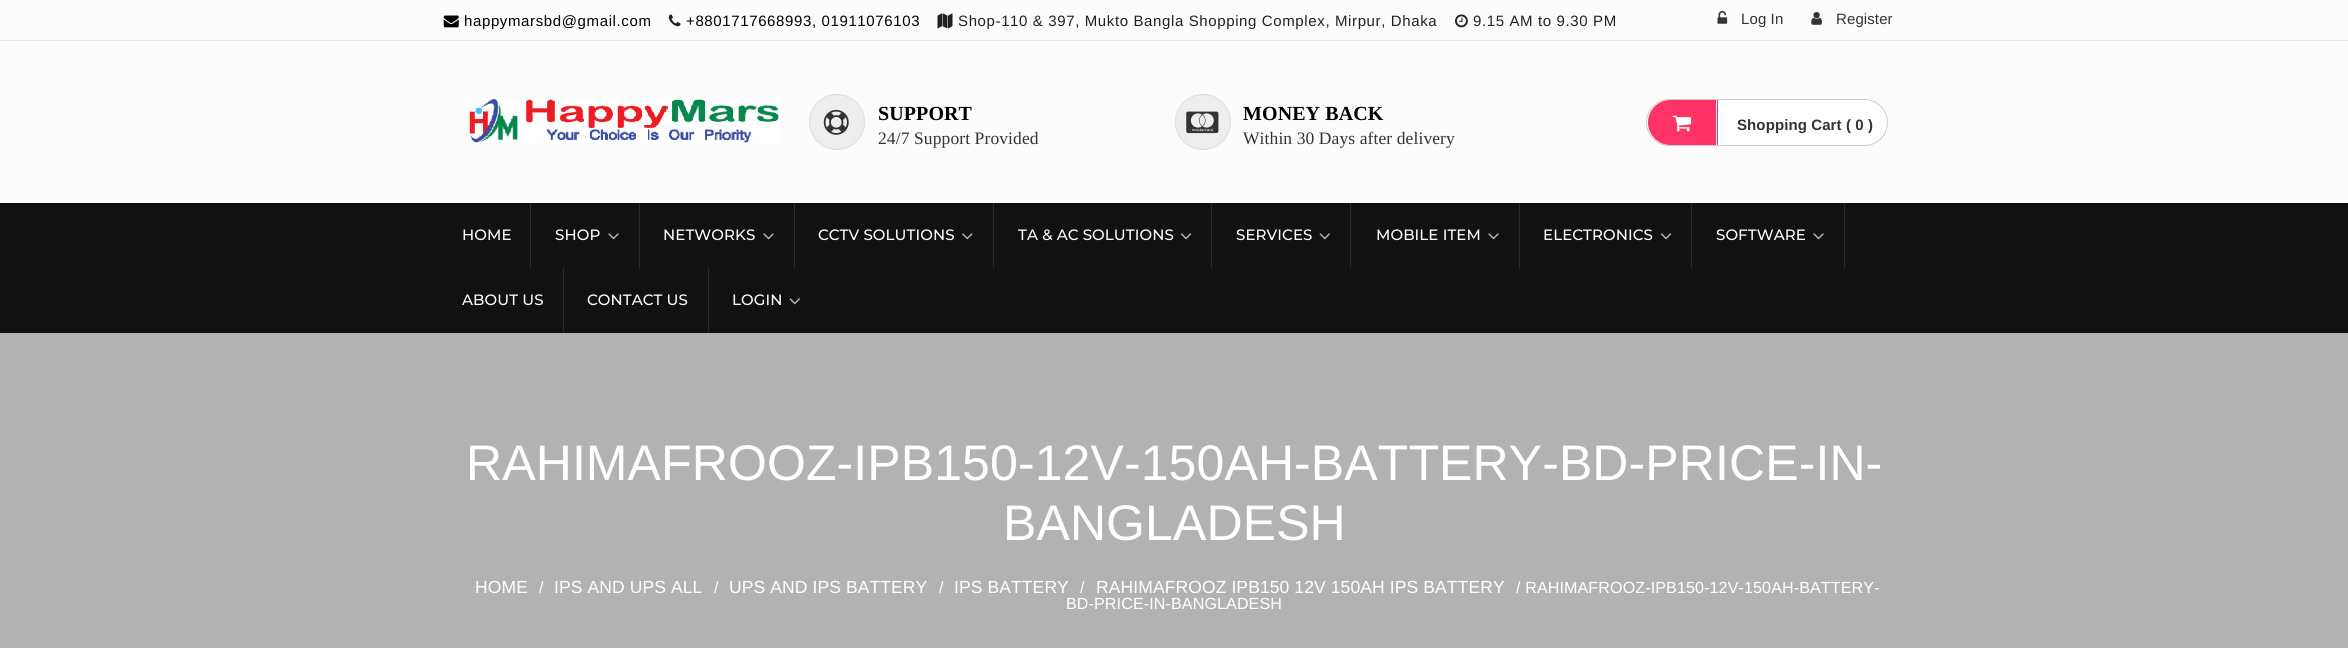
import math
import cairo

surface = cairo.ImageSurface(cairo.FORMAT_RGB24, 2348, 648)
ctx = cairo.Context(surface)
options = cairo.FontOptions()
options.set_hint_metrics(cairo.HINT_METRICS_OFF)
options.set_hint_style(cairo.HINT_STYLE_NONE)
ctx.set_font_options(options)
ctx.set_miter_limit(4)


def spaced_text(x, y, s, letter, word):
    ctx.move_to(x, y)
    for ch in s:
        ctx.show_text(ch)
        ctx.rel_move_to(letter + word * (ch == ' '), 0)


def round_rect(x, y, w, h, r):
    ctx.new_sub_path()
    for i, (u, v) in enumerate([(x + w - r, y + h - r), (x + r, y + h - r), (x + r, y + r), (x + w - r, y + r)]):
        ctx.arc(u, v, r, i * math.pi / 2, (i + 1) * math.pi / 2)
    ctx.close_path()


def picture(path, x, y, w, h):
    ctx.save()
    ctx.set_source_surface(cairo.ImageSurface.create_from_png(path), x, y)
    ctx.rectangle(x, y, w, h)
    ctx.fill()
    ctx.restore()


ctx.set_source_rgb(0.988, 0.988, 0.988)
ctx.paint()
ctx.set_source_rgb(0.918, 0.918, 0.918)
ctx.rectangle(0, 40, 2348, 1)
ctx.fill()
picture("img1.png", 443, 15, 16, 13)
ctx.select_font_face("Liberation Sans")
ctx.set_font_size(15)
ctx.set_source_rgb(0, 0, 0)
spaced_text(464, 26, "happymarsbd@gmail.com", 0.62, 0)
picture("img2.png", 668, 14, 13, 13)
spaced_text(686, 26, "+8801717668993, 01911076103", 0.62, 0)
picture("img3.png", 937, 13, 16, 16)
ctx.set_source_rgb(0.129, 0.129, 0.129)
spaced_text(958, 26, "Shop-110 & 397, Mukto Bangla Shopping Complex, Mirpur, Dhaka", 0.62, 0)
picture("img4.png", 1455, 14, 13, 14)
spaced_text(1473, 26, "9.15 AM to 9.30 PM", 0.62, 0)
picture("img5.png", 1717, 10, 11, 14)
ctx.set_source_rgb(0.2, 0.2, 0.2)
spaced_text(1741, 24, "Log In", 0.1, 0)
picture("img6.png", 1811, 12, 11, 13)
spaced_text(1836, 24, "Register", 0.1, 0)
picture("img7.png", 469, 99, 310, 44)
ctx.set_source_rgb(0.933, 0.933, 0.933)
ctx.arc(837, 122, 27.5, 0, 2 * math.pi)
ctx.fill_preserve()
ctx.set_source_rgb(0.867, 0.867, 0.867)
ctx.set_line_width(1)
ctx.stroke()
picture("img8.png", 823, 109, 26, 26)
ctx.select_font_face("Liberation Serif", cairo.FONT_SLANT_NORMAL, cairo.FONT_WEIGHT_BOLD)
ctx.set_font_size(20)
ctx.set_source_rgb(0, 0, 0)
spaced_text(878, 120, "SUPPORT", 0.1, 0)
ctx.select_font_face("Liberation Serif")
ctx.set_font_size(17.5)
ctx.set_source_rgb(0.2, 0.2, 0.2)
spaced_text(878, 144, "24/7 Support Provided", 0.1, 0)
ctx.set_source_rgb(0.933, 0.933, 0.933)
ctx.new_path()
ctx.arc(1203, 122, 27.5, 0, 2 * math.pi)
ctx.fill_preserve()
ctx.set_source_rgb(0.867, 0.867, 0.867)
ctx.stroke()
picture("img9.png", 1186, 111, 33, 23)
ctx.select_font_face("Liberation Serif", cairo.FONT_SLANT_NORMAL, cairo.FONT_WEIGHT_BOLD)
ctx.set_font_size(20)
ctx.set_source_rgb(0, 0, 0)
spaced_text(1243, 120, "MONEY BACK", 0.1, 0)
ctx.select_font_face("Liberation Serif")
ctx.set_font_size(17.5)
ctx.set_source_rgb(0.2, 0.2, 0.2)
spaced_text(1243, 144, "Within 30 Days after delivery", 0.1, 0)
ctx.set_source_rgb(1, 1, 1)
round_rect(1646.5, 99.5, 241, 46, 23)
ctx.fill_preserve()
ctx.set_source_rgb(0.8, 0.8, 0.8)
ctx.stroke()
ctx.set_source_rgb(1, 0.2, 0.4)
ctx.new_path()
ctx.move_to(1670.5, 100)
ctx.line_to(1718, 100)
ctx.line_to(1718, 145)
ctx.line_to(1670.5, 145)
ctx.curve_to(1658, 145, 1648, 135, 1648, 122.5)
ctx.curve_to(1648, 110, 1658, 100, 1670.5, 100)
ctx.close_path()
ctx.fill()
ctx.set_source_rgb(0.961, 0.961, 0.961)
ctx.rectangle(1716, 100, 1, 45)
ctx.fill()
picture("img10.png", 1672, 115, 20, 17)
ctx.select_font_face("Liberation Sans", cairo.FONT_SLANT_NORMAL, cairo.FONT_WEIGHT_BOLD)
ctx.set_font_size(15)
ctx.set_source_rgb(0.2, 0.2, 0.2)
spaced_text(1737, 130, "Shopping Cart ( 0 )", 0.1, 0)
ctx.set_source_rgb(0.067, 0.067, 0.067)
ctx.rectangle(0, 203, 2348, 130)
ctx.fill()
ctx.set_source_rgb(0.169, 0.169, 0.169)
ctx.rectangle(530, 203, 1, 65)
ctx.fill()
ctx.select_font_face("Montserrat Medium")
ctx.set_source_rgb(1, 1, 1)
spaced_text(462, 240, "HOME", 0.1, 0)
ctx.set_source_rgb(0.169, 0.169, 0.169)
ctx.rectangle(639, 203, 1, 65)
ctx.fill()
ctx.set_source_rgb(1, 1, 1)
spaced_text(555, 240, "SHOP", 0.1, 0)
picture("img11.png", 608, 233, 11, 7)
ctx.set_source_rgb(0.169, 0.169, 0.169)
ctx.rectangle(794, 203, 1, 65)
ctx.fill()
ctx.set_source_rgb(1, 1, 1)
spaced_text(663, 240, "NETWORKS", 0.1, 0)
picture("img11.png", 763, 233, 11, 7)
ctx.set_source_rgb(0.169, 0.169, 0.169)
ctx.rectangle(993, 203, 1, 65)
ctx.fill()
ctx.set_source_rgb(1, 1, 1)
spaced_text(818, 240, "CCTV SOLUTIONS", 0.1, 0)
picture("img12.png", 962, 233, 11, 7)
ctx.set_source_rgb(0.169, 0.169, 0.169)
ctx.rectangle(1211, 203, 1, 65)
ctx.fill()
ctx.set_source_rgb(1, 1, 1)
spaced_text(1018, 240, "TA & AC SOLUTIONS", 0.1, 0)
picture("img13.png", 1180, 233, 12, 7)
ctx.set_source_rgb(0.169, 0.169, 0.169)
ctx.rectangle(1350, 203, 1, 65)
ctx.fill()
ctx.set_source_rgb(1, 1, 1)
spaced_text(1236, 240, "SERVICES", 0.1, 0)
picture("img14.png", 1319, 233, 11, 7)
ctx.set_source_rgb(0.169, 0.169, 0.169)
ctx.rectangle(1519, 203, 1, 65)
ctx.fill()
ctx.set_source_rgb(1, 1, 1)
spaced_text(1376, 240, "MOBILE ITEM", 0.1, 0)
picture("img11.png", 1488, 233, 11, 7)
ctx.set_source_rgb(0.169, 0.169, 0.169)
ctx.rectangle(1691, 203, 1, 65)
ctx.fill()
ctx.set_source_rgb(1, 1, 1)
spaced_text(1543, 240, "ELECTRONICS", 0.1, 0)
picture("img13.png", 1660, 233, 12, 7)
ctx.set_source_rgb(0.169, 0.169, 0.169)
ctx.rectangle(1844, 203, 1, 65)
ctx.fill()
ctx.set_source_rgb(1, 1, 1)
spaced_text(1716, 240, "SOFTWARE", 0.1, 0)
picture("img11.png", 1813, 233, 11, 7)
ctx.set_source_rgb(0.169, 0.169, 0.169)
ctx.rectangle(563, 268, 1, 65)
ctx.fill()
ctx.set_source_rgb(1, 1, 1)
spaced_text(462, 305, "ABOUT US", 0.1, 0)
ctx.set_source_rgb(0.169, 0.169, 0.169)
ctx.rectangle(708, 268, 1, 65)
ctx.fill()
ctx.set_source_rgb(1, 1, 1)
spaced_text(587, 305, "CONTACT US", 0.1, 0)
spaced_text(732, 305, "LOGIN", 0.1, 0)
picture("img14.png", 789, 298, 11, 7)
ctx.set_source_rgb(0.698, 0.698, 0.698)
ctx.rectangle(0, 333, 2348, 315)
ctx.fill()
ctx.select_font_face("Liberation Sans")
ctx.set_font_size(50)
ctx.set_source_rgb(1, 1, 1)
spaced_text(466, 480, "RAHIMAFROOZ-IPB150-12V-150AH-BATTERY-BD-PRICE-IN-", 0.1, 0)
spaced_text(1003, 540, "BANGLADESH", 0.1, 0)
ctx.set_font_size(17.5)
spaced_text(475, 593, "HOME", 0.1, 0)
ctx.set_font_size(16.1)
spaced_text(539, 593, "/", 0.1, 0)
ctx.set_font_size(17.5)
spaced_text(554, 593, "IPS AND UPS ALL", 0.1, 0)
ctx.set_font_size(16.1)
spaced_text(714, 593, "/", 0.1, 0)
ctx.set_font_size(17.5)
spaced_text(729, 593, "UPS AND IPS BATTERY", 0.1, 0)
ctx.set_font_size(16.1)
spaced_text(939, 593, "/", 0.1, 0)
ctx.set_font_size(17.5)
spaced_text(954, 593, "IPS BATTERY", 0.1, 0)
ctx.set_font_size(16.1)
spaced_text(1080, 593, "/", 0.1, 0)
ctx.set_font_size(17.5)
spaced_text(1096, 593, "RAHIMAFROOZ IPB150 12V 150AH IPS BATTERY", 0.1, 0)
ctx.set_font_size(16.1)
spaced_text(1516, 593, "/ RAHIMAFROOZ-IPB150-12V-150AH-BATTERY-", 0.1, 0)
spaced_text(1066, 609, "BD-PRICE-IN-BANGLADESH", 0.1, 0)
surface.write_to_png("page.png")
